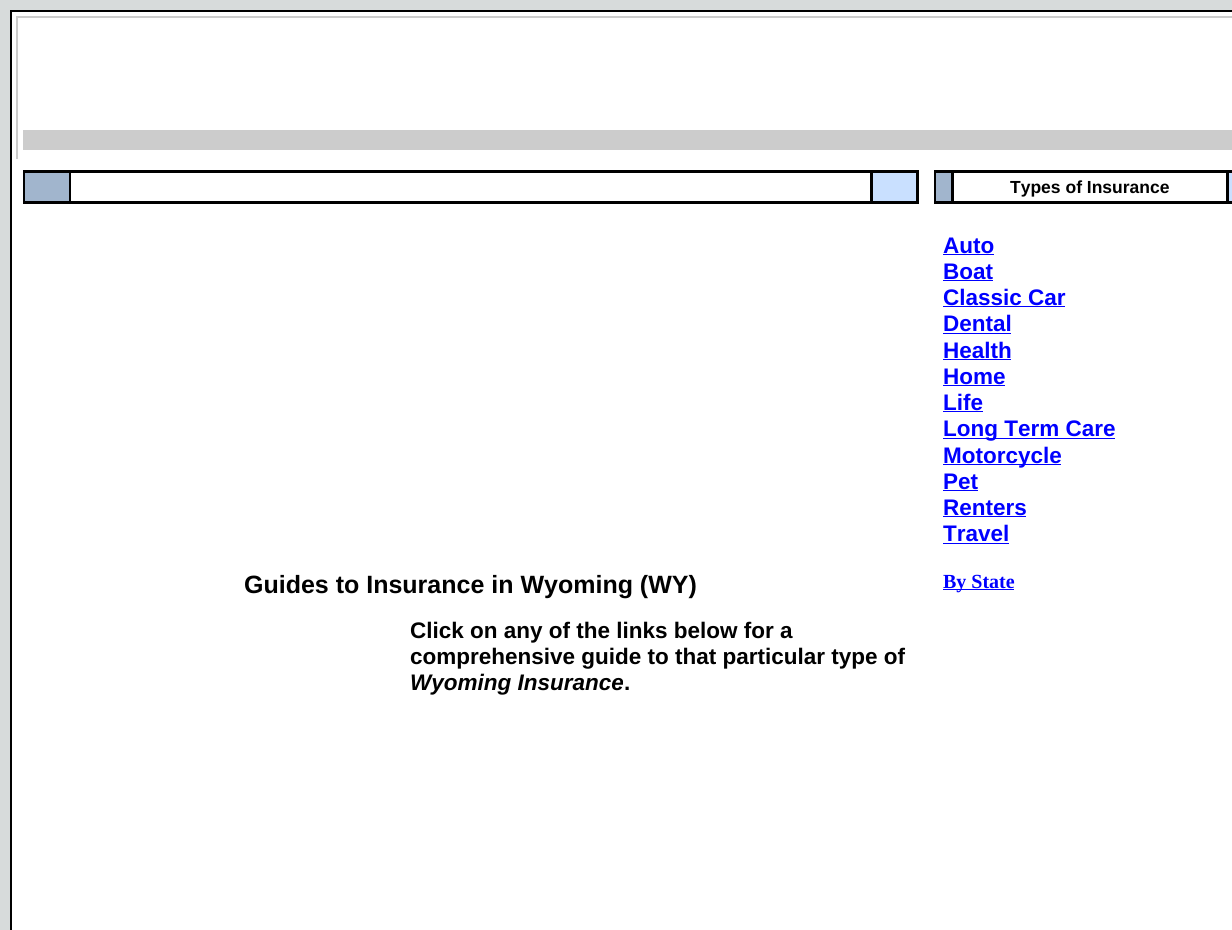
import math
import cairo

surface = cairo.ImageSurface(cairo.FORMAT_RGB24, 1232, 930)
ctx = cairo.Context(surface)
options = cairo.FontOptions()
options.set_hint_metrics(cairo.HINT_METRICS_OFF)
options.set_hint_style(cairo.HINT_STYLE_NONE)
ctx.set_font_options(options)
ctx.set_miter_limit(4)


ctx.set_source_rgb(0.843, 0.859, 0.859)
ctx.paint()
ctx.set_source_rgb(1, 1, 1)
ctx.rectangle(12, 12, 1220, 918)
ctx.fill()
ctx.rectangle(10.5, 10.5, 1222, 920)
ctx.set_source_rgb(0, 0, 0)
ctx.set_line_width(1)
ctx.stroke()
ctx.rectangle(11.5, 11.5, 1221, 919)
ctx.stroke()
ctx.set_source_rgb(0.8, 0.8, 0.8)
ctx.rectangle(16, 16, 1216, 143)
ctx.fill()
ctx.set_source_rgb(1, 1, 1)
ctx.rectangle(18, 18, 1214, 141)
ctx.fill()
ctx.set_source_rgb(0.8, 0.8, 0.8)
ctx.rectangle(23, 130, 1209, 20)
ctx.fill()
ctx.set_source_rgb(0, 0, 0)
ctx.rectangle(934, 170, 298, 34)
ctx.fill()
ctx.set_source_rgb(0.631, 0.71, 0.804)
ctx.rectangle(936, 173, 15, 28)
ctx.fill()
ctx.set_source_rgb(1, 1, 1)
ctx.rectangle(954, 173, 272, 28)
ctx.fill()
ctx.select_font_face("Liberation Sans", cairo.FONT_SLANT_NORMAL, cairo.FONT_WEIGHT_BOLD)
ctx.set_font_size(17.5)
ctx.set_source_rgb(0, 0, 0)
ctx.move_to(1010, 193)
ctx.show_text("Types of Insurance")
ctx.set_source_rgb(0.788, 0.878, 1)
ctx.rectangle(1229, 173, 3, 28)
ctx.fill()
ctx.set_font_size(22.5)
ctx.set_source_rgb(0, 0, 1)
ctx.move_to(943, 253)
ctx.show_text("Auto")
ctx.rectangle(943, 254, 51, 1)
ctx.fill()
ctx.move_to(943, 279)
ctx.show_text("Boat")
ctx.rectangle(943, 280, 50, 1)
ctx.fill()
ctx.move_to(943, 305)
ctx.show_text("Classic Car")
ctx.rectangle(943, 306, 122, 1)
ctx.fill()
ctx.move_to(943, 331)
ctx.show_text("Dental")
ctx.rectangle(943, 333, 68, 1)
ctx.fill()
ctx.move_to(943, 358)
ctx.show_text("Health")
ctx.rectangle(943, 359, 68, 1)
ctx.fill()
ctx.move_to(943, 384)
ctx.show_text("Home")
ctx.rectangle(943, 385, 62, 1)
ctx.fill()
ctx.move_to(943, 410)
ctx.show_text("Life")
ctx.rectangle(943, 411, 40, 1)
ctx.fill()
ctx.rectangle(943, 438, 172, 1)
ctx.fill()
ctx.move_to(943, 436)
ctx.show_text("Long Term Care")
ctx.rectangle(943, 464, 118, 1)
ctx.fill()
ctx.move_to(943, 463)
ctx.show_text("Motorcycle")
ctx.move_to(943, 489)
ctx.show_text("Pet")
ctx.rectangle(943, 490, 35, 1)
ctx.fill()
ctx.move_to(943, 515)
ctx.show_text("Renters")
ctx.rectangle(943, 516, 83, 1)
ctx.fill()
ctx.move_to(943, 541)
ctx.show_text("Travel")
ctx.rectangle(943, 543, 66, 1)
ctx.fill()
ctx.rectangle(943, 589, 71, 1)
ctx.fill()
ctx.select_font_face("Liberation Serif", cairo.FONT_SLANT_NORMAL, cairo.FONT_WEIGHT_BOLD)
ctx.set_font_size(20)
ctx.move_to(943, 588)
ctx.show_text("By State")
ctx.set_source_rgb(0, 0, 0)
ctx.rectangle(23, 170, 896, 34)
ctx.fill()
ctx.set_source_rgb(0.631, 0.71, 0.804)
ctx.rectangle(25, 173, 44, 28)
ctx.fill()
ctx.set_source_rgb(1, 1, 1)
ctx.rectangle(71, 173, 799, 28)
ctx.fill()
ctx.set_source_rgb(0.788, 0.878, 1)
ctx.rectangle(873, 173, 43, 28)
ctx.fill()
ctx.select_font_face("Liberation Sans", cairo.FONT_SLANT_NORMAL, cairo.FONT_WEIGHT_BOLD)
ctx.set_font_size(25)
ctx.set_source_rgb(0, 0, 0)
ctx.move_to(244, 593)
ctx.show_text("Guides to Insurance in Wyoming (WY)")
ctx.set_font_size(22.5)
ctx.move_to(410, 638)
ctx.show_text("Click on any of the links below for a")
ctx.move_to(410, 664)
ctx.show_text("comprehensive guide to that particular type of")
ctx.select_font_face("Liberation Sans", cairo.FONT_SLANT_ITALIC, cairo.FONT_WEIGHT_BOLD)
ctx.move_to(410, 690)
ctx.show_text("Wyoming Insurance")
ctx.select_font_face("Liberation Sans", cairo.FONT_SLANT_NORMAL, cairo.FONT_WEIGHT_BOLD)
ctx.move_to(624, 690)
ctx.show_text(".")
surface.write_to_png("page.png")
